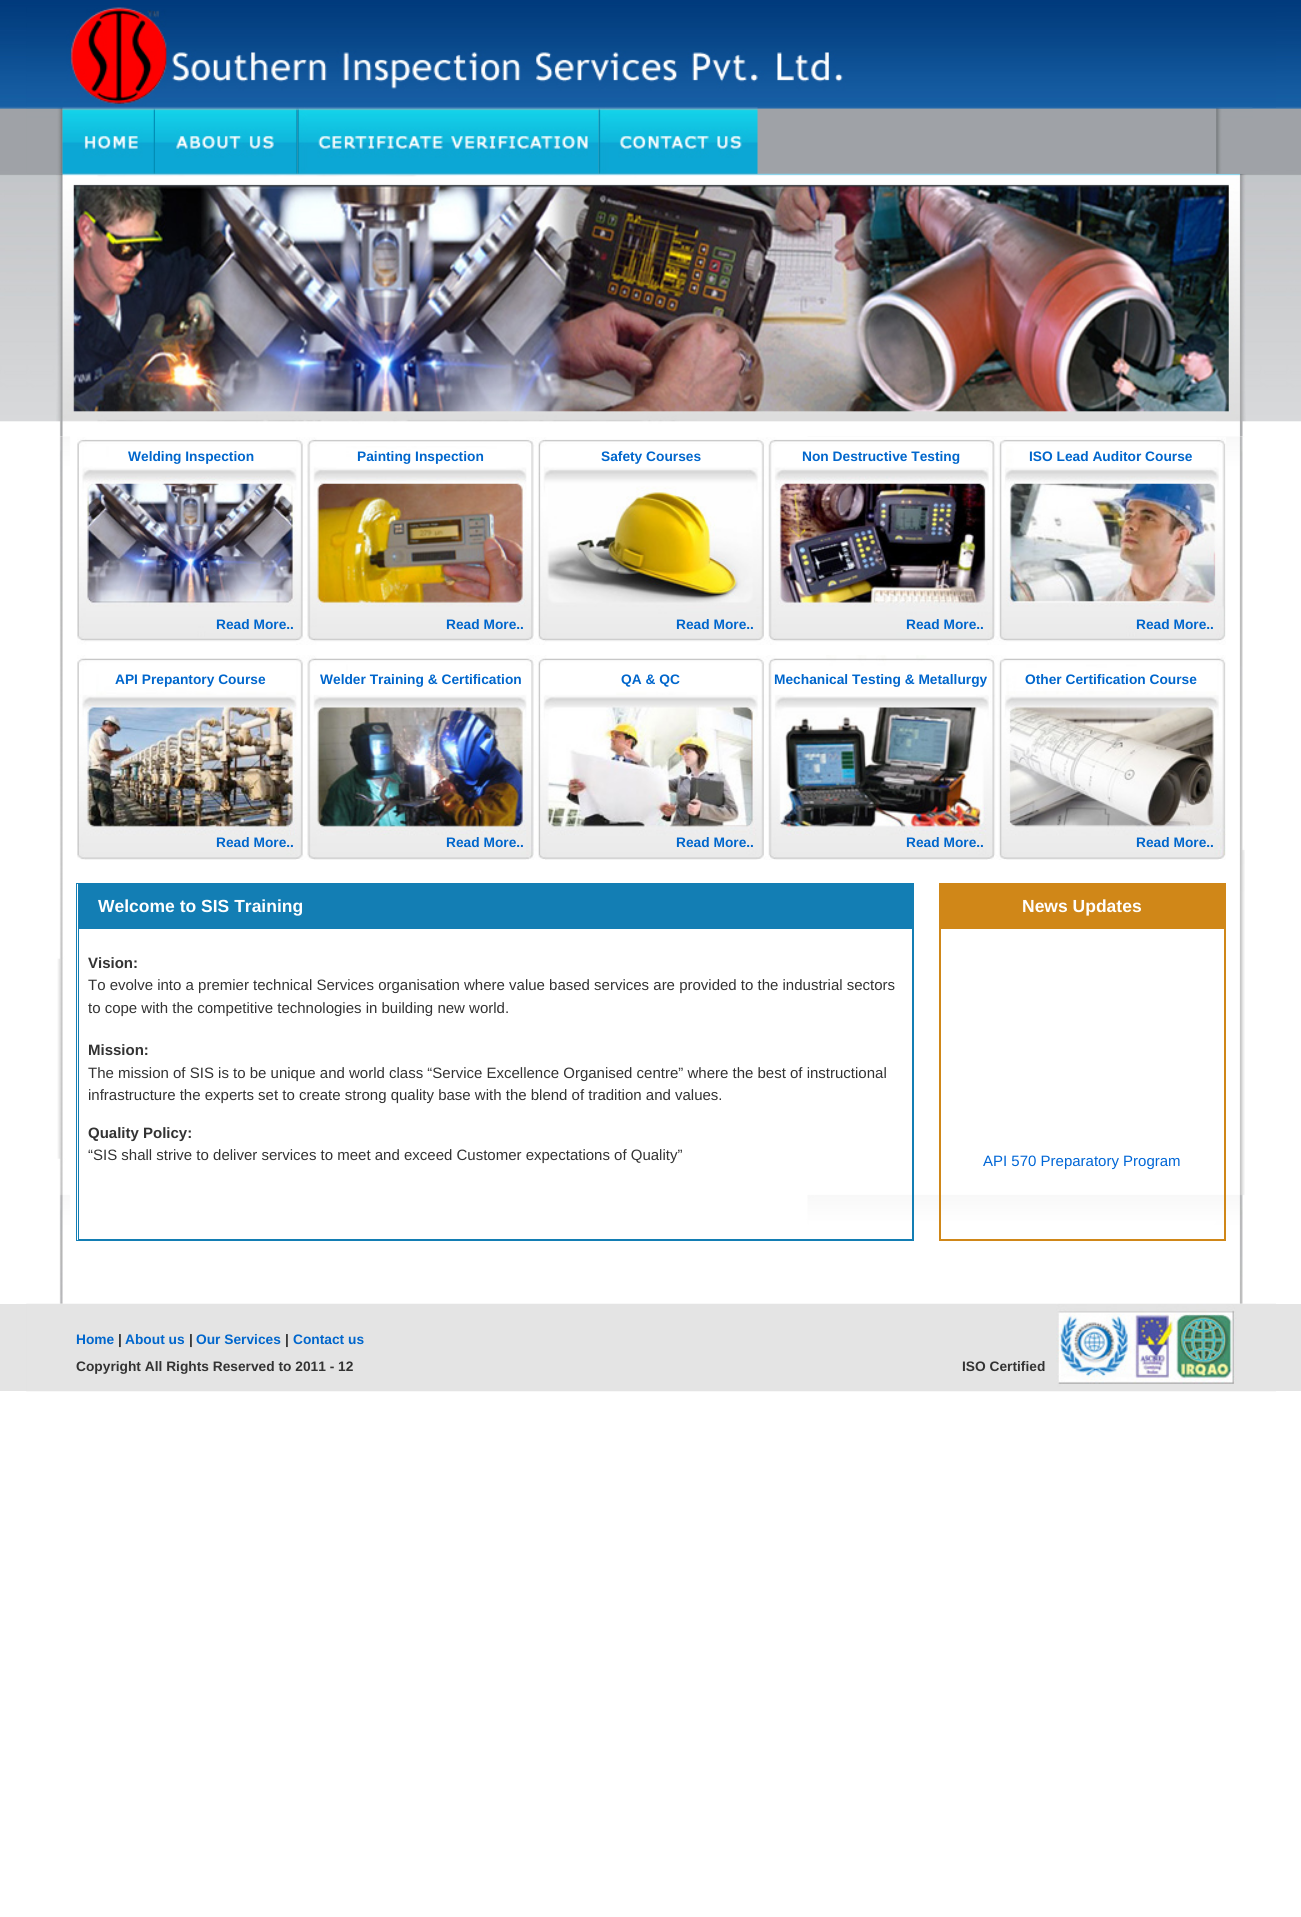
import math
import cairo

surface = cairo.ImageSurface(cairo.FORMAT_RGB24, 1301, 1917)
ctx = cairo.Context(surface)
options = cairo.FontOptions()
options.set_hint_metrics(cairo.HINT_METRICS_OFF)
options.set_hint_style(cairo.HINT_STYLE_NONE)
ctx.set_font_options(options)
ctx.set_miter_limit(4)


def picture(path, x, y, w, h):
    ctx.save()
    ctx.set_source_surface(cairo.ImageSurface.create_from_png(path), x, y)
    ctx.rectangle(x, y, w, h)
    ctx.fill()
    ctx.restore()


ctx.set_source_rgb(1, 1, 1)
ctx.paint()
picture("img1.png", 0, 0, 1301, 422)
picture("img2.png", 26, 7, 1250, 101)
picture("img9.png", 56, 173, 1190, 264)
picture("img3.png", 26, 107, 37, 67)
picture("img4.png", 62, 107, 93, 67)
picture("img5.png", 155, 107, 143, 67)
picture("img6.png", 297, 107, 302, 67)
picture("img7.png", 598, 107, 160, 67)
picture("img8.png", 1216, 107, 37, 67)
picture("img10.png", 57, 436, 1188, 868)
picture("img11.png", 77, 437, 1149, 208)
ctx.select_font_face("Liberation Sans", cairo.FONT_SLANT_NORMAL, cairo.FONT_WEIGHT_BOLD)
ctx.set_font_size(13.75)
ctx.set_source_rgb(0, 0.4, 0.8)
ctx.move_to(128, 461)
ctx.show_text("Welding Inspection")
ctx.move_to(357, 461)
ctx.show_text("Painting Inspection")
ctx.move_to(601, 461)
ctx.show_text("Safety Courses")
ctx.move_to(802, 461)
ctx.show_text("Non Destructive Testing")
ctx.move_to(1029, 461)
ctx.show_text("ISO Lead Auditor Course")
ctx.move_to(216, 629)
ctx.show_text("Read More..")
ctx.move_to(446, 629)
ctx.show_text("Read More..")
ctx.move_to(676, 629)
ctx.show_text("Read More..")
ctx.move_to(906, 629)
ctx.show_text("Read More..")
ctx.move_to(1136, 629)
ctx.show_text("Read More..")
picture("img12.png", 77, 655, 1149, 205)
ctx.move_to(115, 684)
ctx.show_text("API Prepantory Course")
ctx.move_to(320, 684)
ctx.show_text("Welder Training & Certification")
ctx.move_to(621, 684)
ctx.show_text("QA & QC")
ctx.move_to(774, 684)
ctx.show_text("Mechanical Testing & Metallurgy")
ctx.move_to(1025, 684)
ctx.show_text("Other Certification Course")
ctx.move_to(216, 847)
ctx.show_text("Read More..")
ctx.move_to(446, 847)
ctx.show_text("Read More..")
ctx.move_to(676, 847)
ctx.show_text("Read More..")
ctx.move_to(906, 847)
ctx.show_text("Read More..")
ctx.move_to(1136, 847)
ctx.show_text("Read More..")
ctx.rectangle(76.5, 883.5, 837, 357)
ctx.set_source_rgb(0.075, 0.494, 0.706)
ctx.set_line_width(1)
ctx.stroke()
ctx.rectangle(78, 884, 835, 44)
ctx.fill()
ctx.set_font_size(17.5)
ctx.set_source_rgb(1, 1, 1)
ctx.move_to(98, 912)
ctx.show_text("Welcome to SIS Training")
ctx.rectangle(78.5, 928.5, 834, 311)
ctx.set_source_rgb(0.075, 0.494, 0.706)
ctx.stroke()
ctx.set_font_size(15)
ctx.set_source_rgb(0.2, 0.2, 0.2)
ctx.move_to(88, 968)
ctx.show_text("Vision:")
ctx.select_font_face("Liberation Sans")
ctx.move_to(88, 990)
ctx.show_text("To evolve into a premier technical Services organisation where value based services are provided to the industrial sectors")
ctx.move_to(88, 1013)
ctx.show_text("to cope with the competitive technologies in building new world.")
ctx.select_font_face("Liberation Sans", cairo.FONT_SLANT_NORMAL, cairo.FONT_WEIGHT_BOLD)
ctx.move_to(88, 1055)
ctx.show_text("Mission:")
ctx.select_font_face("Liberation Sans")
ctx.move_to(88, 1078)
ctx.show_text("The mission of SIS is to be unique and world class “Service Excellence Organised centre” where the best of instructional")
ctx.move_to(88, 1100)
ctx.show_text("infrastructure the experts set to create strong quality base with the blend of tradition and values.")
ctx.select_font_face("Liberation Sans", cairo.FONT_SLANT_NORMAL, cairo.FONT_WEIGHT_BOLD)
ctx.move_to(88, 1138)
ctx.show_text("Quality Policy:")
ctx.select_font_face("Liberation Sans")
ctx.move_to(88, 1160)
ctx.show_text("“SIS shall strive to deliver services to meet and exceed Customer expectations of Quality”")
ctx.rectangle(939.5, 883.5, 286, 357)
ctx.set_source_rgb(0.816, 0.529, 0.094)
ctx.stroke()
ctx.rectangle(940, 884, 285, 44)
ctx.fill()
ctx.select_font_face("Liberation Sans", cairo.FONT_SLANT_NORMAL, cairo.FONT_WEIGHT_BOLD)
ctx.set_font_size(17.5)
ctx.set_source_rgb(1, 1, 1)
ctx.move_to(1022, 912)
ctx.show_text("News Updates")
ctx.rectangle(940.5, 928.5, 284, 311)
ctx.set_source_rgb(0.816, 0.529, 0.094)
ctx.stroke()
ctx.select_font_face("Liberation Sans")
ctx.set_font_size(15)
ctx.set_source_rgb(0, 0.4, 0.839)
ctx.move_to(983, 1166)
ctx.show_text("API 570 Preparatory Program")
ctx.set_source_rgb(0.894, 0.894, 0.894)
ctx.rectangle(0, 1304, 1301, 87)
ctx.fill()
picture("img13.png", 26, 1303, 1250, 89)
ctx.select_font_face("Liberation Sans", cairo.FONT_SLANT_NORMAL, cairo.FONT_WEIGHT_BOLD)
ctx.set_font_size(13.75)
ctx.set_source_rgb(0, 0.4, 0.8)
ctx.move_to(76, 1344)
ctx.show_text("Home")
ctx.set_source_rgb(0.2, 0.2, 0.2)
ctx.move_to(118, 1344)
ctx.show_text("|")
ctx.set_source_rgb(0, 0.4, 0.8)
ctx.move_to(125, 1344)
ctx.show_text("About us")
ctx.set_source_rgb(0.2, 0.2, 0.2)
ctx.move_to(189, 1344)
ctx.show_text("|")
ctx.set_source_rgb(0, 0.4, 0.8)
ctx.move_to(196, 1344)
ctx.show_text("Our Services")
ctx.set_source_rgb(0.2, 0.2, 0.2)
ctx.move_to(285, 1344)
ctx.show_text("|")
ctx.set_source_rgb(0, 0.4, 0.8)
ctx.move_to(293, 1344)
ctx.show_text("Contact us")
ctx.set_source_rgb(0.2, 0.2, 0.2)
ctx.move_to(76, 1371)
ctx.show_text("Copyright All Rights Reserved to 2011 - 12")
ctx.move_to(962, 1371)
ctx.show_text("ISO Certified")
surface.write_to_png("page.png")
